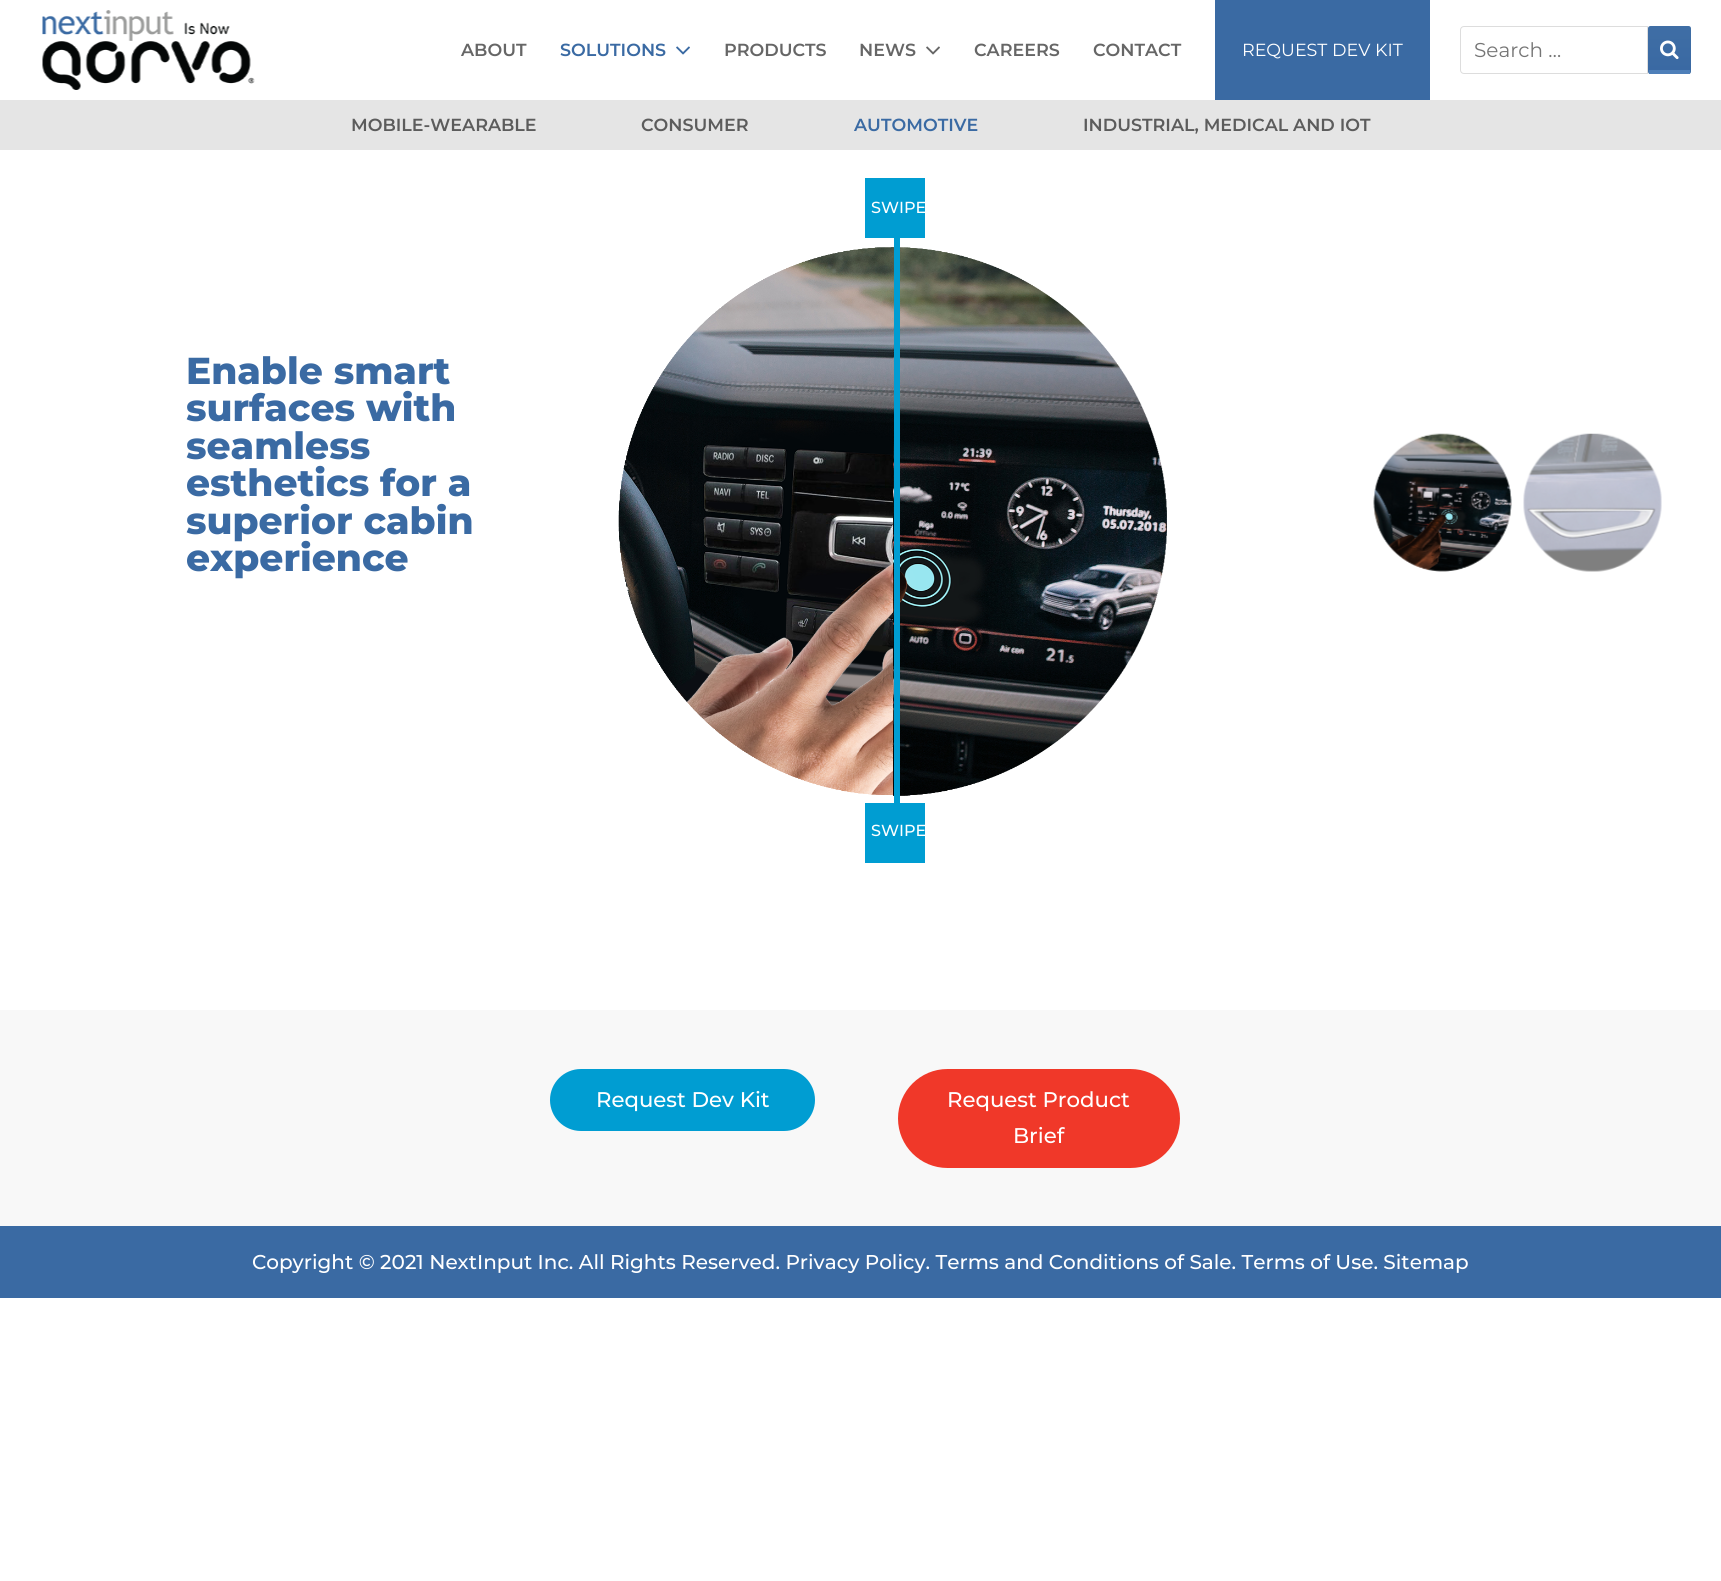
import math
import cairo

surface = cairo.ImageSurface(cairo.FORMAT_RGB24, 1721, 1581)
ctx = cairo.Context(surface)
options = cairo.FontOptions()
options.set_hint_metrics(cairo.HINT_METRICS_OFF)
options.set_hint_style(cairo.HINT_STYLE_NONE)
ctx.set_font_options(options)
ctx.set_miter_limit(4)


def round_rect(x, y, w, h, r):
    ctx.new_sub_path()
    for i, (u, v) in enumerate([(x + w - r, y + h - r), (x + r, y + h - r), (x + r, y + r), (x + w - r, y + r)]):
        ctx.arc(u, v, r, i * math.pi / 2, (i + 1) * math.pi / 2)
    ctx.close_path()


def picture(path, x, y, w, h):
    ctx.save()
    ctx.set_source_surface(cairo.ImageSurface.create_from_png(path), x, y)
    ctx.rectangle(x, y, w, h)
    ctx.fill()
    ctx.restore()


ctx.set_source_rgb(1, 1, 1)
ctx.paint()
picture("img1.png", 42, 10, 213, 80)
ctx.select_font_face("Montserrat SemiBold")
ctx.set_font_size(17.5)
ctx.set_source_rgb(0.227, 0.416, 0.639)
ctx.move_to(560, 56)
ctx.show_text("SOLUTIONS")
picture("img2.png", 676, 46, 14, 9)
ctx.set_source_rgb(0.898, 0.898, 0.898)
ctx.rectangle(0, 100, 1721, 50)
ctx.fill()
ctx.set_source_rgb(0.361, 0.361, 0.361)
ctx.move_to(351, 131)
ctx.show_text("MOBILE-WEARABLE")
ctx.move_to(641, 131)
ctx.show_text("CONSUMER")
ctx.set_source_rgb(0.227, 0.416, 0.639)
ctx.move_to(854, 131)
ctx.show_text("AUTOMOTIVE")
ctx.set_source_rgb(0.361, 0.361, 0.361)
ctx.move_to(1083, 131)
ctx.show_text("INDUSTRIAL, MEDICAL AND IOT")
ctx.set_source_rgb(0.4, 0.4, 0.4)
ctx.move_to(461, 56)
ctx.show_text("ABOUT")
ctx.move_to(724, 56)
ctx.show_text("PRODUCTS")
ctx.move_to(859, 56)
ctx.show_text("NEWS")
picture("img3.png", 926, 46, 14, 9)
ctx.move_to(974, 56)
ctx.show_text("CAREERS")
ctx.move_to(1093, 56)
ctx.show_text("CONTACT")
ctx.set_source_rgb(0.227, 0.416, 0.639)
ctx.rectangle(1215, 0, 215, 100)
ctx.fill()
ctx.select_font_face("Montserrat")
ctx.set_source_rgb(1, 1, 1)
ctx.move_to(1242, 56)
ctx.show_text("REQUEST DEV KIT")
ctx.new_path()
ctx.move_to(1464, 26.5)
ctx.line_to(1647.5, 26.5)
ctx.line_to(1647.5, 73.5)
ctx.line_to(1464, 73.5)
ctx.curve_to(1462, 73.5, 1460.5, 72, 1460.5, 70)
ctx.line_to(1460.5, 30)
ctx.curve_to(1460.5, 28, 1462, 26.5, 1464, 26.5)
ctx.close_path()
ctx.set_source_rgb(0.867, 0.867, 0.867)
ctx.set_line_width(1)
ctx.stroke()
ctx.set_font_size(20)
ctx.set_source_rgb(0.459, 0.459, 0.459)
ctx.move_to(1474, 57)
ctx.show_text("Search …")
gradient = cairo.LinearGradient(1669, 26, 1669, 70)
gradient.add_color_stop_rgba(0, 0.247, 0.431, 0.647, 1)
gradient.add_color_stop_rgba(1, 0.227, 0.412, 0.639, 1)
ctx.set_source(gradient)
ctx.new_path()
ctx.move_to(1650.5, 26)
ctx.line_to(1688.5, 26)
ctx.curve_to(1690, 26, 1691, 27, 1691, 28.5)
ctx.line_to(1691, 70)
ctx.line_to(1648, 70)
ctx.line_to(1648, 28.5)
ctx.curve_to(1648, 27, 1649, 26, 1650.5, 26)
ctx.close_path()
ctx.fill()
gradient = cairo.LinearGradient(1669, 70, 1669, 114)
gradient.add_color_stop_rgba(0, 0.247, 0.431, 0.647, 1)
gradient.add_color_stop_rgba(1, 0.227, 0.412, 0.639, 1)
ctx.set_source(gradient)
ctx.new_path()
ctx.move_to(1648, 70)
ctx.line_to(1691, 70)
ctx.line_to(1691, 71.5)
ctx.curve_to(1691, 73, 1690, 74, 1688.5, 74)
ctx.line_to(1650.5, 74)
ctx.curve_to(1649, 74, 1648, 73, 1648, 71.5)
ctx.close_path()
ctx.fill()
ctx.set_source_rgb(0.306, 0.498, 0.725)
ctx.rectangle(1649, 70, 41, 4)
ctx.fill()
picture("img4.png", 1660, 40, 19, 20)
ctx.select_font_face("Montserrat ExtraBold")
ctx.set_font_size(37.5)
ctx.set_source_rgb(0.227, 0.416, 0.639)
ctx.move_to(186, 384)
ctx.show_text("Enable smart")
ctx.move_to(186, 421)
ctx.show_text("surfaces with")
ctx.move_to(186, 459)
ctx.show_text("seamless")
ctx.move_to(186, 496)
ctx.show_text("esthetics for a")
ctx.move_to(186, 534)
ctx.show_text("superior cabin")
ctx.move_to(186, 571)
ctx.show_text("experience")
picture("img5.png", 618, 247, 275, 548)
ctx.set_source_rgb(0, 0.616, 0.824)
ctx.rectangle(865, 178, 60, 60)
ctx.fill()
ctx.select_font_face("Montserrat Medium")
ctx.set_font_size(16)
ctx.set_source_rgb(1, 1, 1)
ctx.move_to(871, 213)
ctx.show_text("SWIPE")
picture("img6.png", 893, 247, 274, 549)
ctx.set_source_rgb(0, 0.616, 0.824)
ctx.rectangle(894, 235, 6, 575)
ctx.fill()
ctx.rectangle(865, 803, 60, 60)
ctx.fill()
ctx.set_source_rgb(1, 1, 1)
ctx.move_to(871, 836)
ctx.show_text("SWIPE")
picture("img7.png", 1373, 433, 139, 139)
picture("img8.png", 1523, 433, 139, 139)
ctx.set_source_rgb(0.969, 0.969, 0.969)
ctx.rectangle(0, 1010, 1721, 216)
ctx.fill()
ctx.set_source_rgb(0, 0.616, 0.824)
round_rect(551.5, 1070.5, 262, 59, 29.5)
ctx.fill_preserve()
ctx.set_line_width(3)
ctx.stroke()
ctx.set_font_size(21.25)
ctx.set_source_rgb(1, 1, 1)
ctx.move_to(596, 1107)
ctx.show_text("Request Dev Kit")
ctx.set_source_rgb(0.941, 0.22, 0.161)
round_rect(899.5, 1070.5, 279, 96, 48)
ctx.fill_preserve()
ctx.stroke()
ctx.set_source_rgb(1, 1, 1)
ctx.move_to(947, 1107)
ctx.show_text("Request Product")
ctx.move_to(1013, 1143)
ctx.show_text("Brief")
ctx.set_source_rgb(0.227, 0.416, 0.639)
ctx.rectangle(0, 1226, 1721, 72)
ctx.fill()
ctx.set_font_size(20)
ctx.set_source_rgb(1, 1, 1)
ctx.move_to(252, 1269)
ctx.show_text("Copyright © 2021 NextInput Inc. All Rights Reserved. Privacy Policy. Terms and Conditions of Sale. Terms of Use. Sitemap")
surface.write_to_png("page.png")
